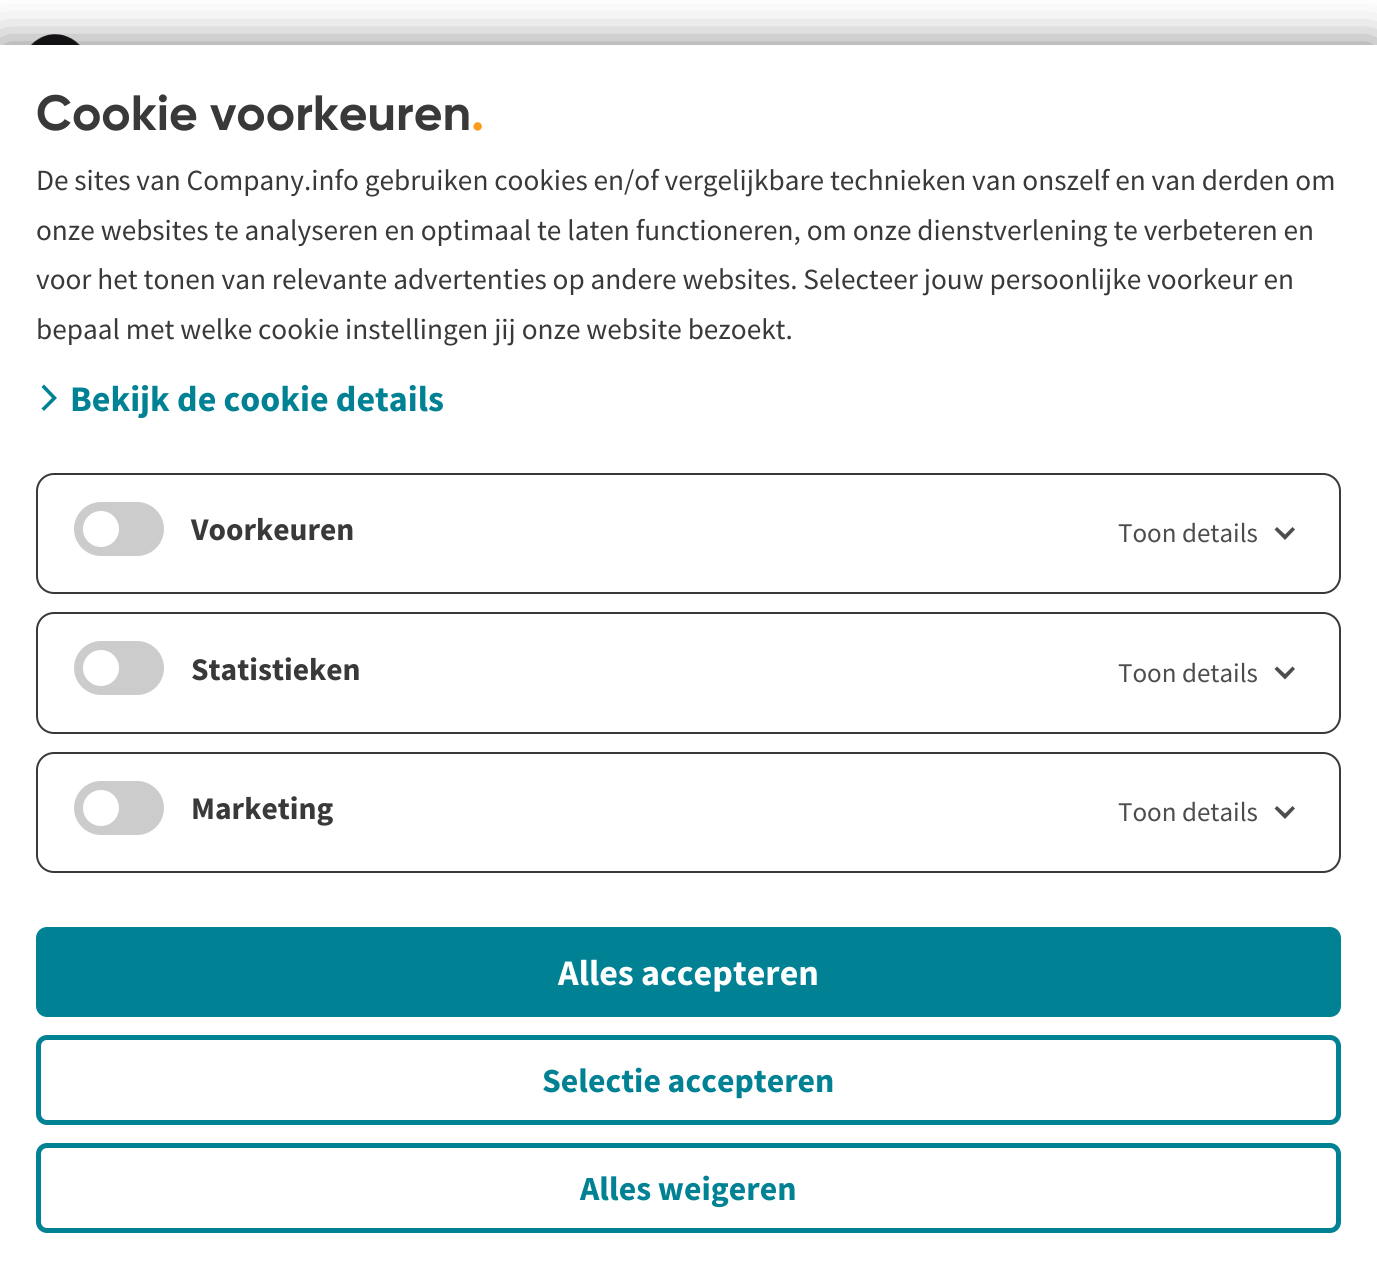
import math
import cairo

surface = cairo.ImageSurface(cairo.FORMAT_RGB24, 1377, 1268)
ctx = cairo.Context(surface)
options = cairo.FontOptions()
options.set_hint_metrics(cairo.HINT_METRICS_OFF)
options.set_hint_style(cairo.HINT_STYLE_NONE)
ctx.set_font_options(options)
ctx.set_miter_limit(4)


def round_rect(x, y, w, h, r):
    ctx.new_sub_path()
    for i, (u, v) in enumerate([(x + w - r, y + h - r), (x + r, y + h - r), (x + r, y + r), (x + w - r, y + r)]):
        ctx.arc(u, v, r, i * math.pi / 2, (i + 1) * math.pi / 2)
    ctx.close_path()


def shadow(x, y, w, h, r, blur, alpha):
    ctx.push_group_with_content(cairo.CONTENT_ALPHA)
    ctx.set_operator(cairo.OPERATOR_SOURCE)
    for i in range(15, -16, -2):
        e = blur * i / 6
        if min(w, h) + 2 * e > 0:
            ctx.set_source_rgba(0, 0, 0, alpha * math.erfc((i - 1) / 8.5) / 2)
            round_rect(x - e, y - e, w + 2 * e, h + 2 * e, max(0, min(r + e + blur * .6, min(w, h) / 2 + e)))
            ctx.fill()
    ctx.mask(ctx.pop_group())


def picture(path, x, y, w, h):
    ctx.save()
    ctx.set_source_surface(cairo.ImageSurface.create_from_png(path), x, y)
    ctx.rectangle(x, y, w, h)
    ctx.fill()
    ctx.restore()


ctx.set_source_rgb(1, 1, 1)
ctx.paint()
picture("img1.png", 30, 34, 50, 11)
ctx.set_source_rgb(0, 0, 0)
shadow(0, 45, 1377, 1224, 0, 22.5, 0.5)
ctx.set_source_rgb(1, 1, 1)
ctx.rectangle(0, 45, 1377, 1223)
ctx.fill()
ctx.select_font_face("Gilroy", cairo.FONT_SLANT_NORMAL, cairo.FONT_WEIGHT_BOLD)
ctx.set_font_size(49.5)
ctx.set_source_rgb(0.224, 0.224, 0.224)
ctx.move_to(36, 130)
ctx.show_text("Cookie voorkeuren")
ctx.set_source_rgb(0.98, 0.612, 0.122)
ctx.move_to(471, 130)
ctx.show_text(".")
ctx.select_font_face("Source Sans Pro")
ctx.set_font_size(29.25)
ctx.set_source_rgb(0.224, 0.224, 0.224)
ctx.move_to(36, 190)
ctx.show_text("De sites van Company.info gebruiken cookies en/of vergelijkbare technieken van onszelf en van derden om")
ctx.move_to(36, 240)
ctx.show_text("onze websites te analyseren en optimaal te laten functioneren, om onze dienstverlening te verbeteren en")
ctx.move_to(36, 289)
ctx.show_text("voor het tonen van relevante advertenties op andere websites. Selecteer jouw persoonlijke voorkeur en")
ctx.move_to(36, 339)
ctx.show_text("bepaal met welke cookie instellingen jij onze website bezoekt.")
ctx.set_source_rgb(0, 0.506, 0.58)
ctx.set_fill_rule(cairo.FILL_RULE_EVEN_ODD)
ctx.new_path()
ctx.move_to(55.5, 396.5)
ctx.line_to(44, 384.5)
ctx.line_to(41.5, 387)
ctx.line_to(52, 398)
ctx.line_to(41.5, 408.5)
ctx.line_to(44, 411)
ctx.line_to(57, 398)
ctx.close_path()
ctx.fill()
ctx.select_font_face("Source Sans Pro", cairo.FONT_SLANT_NORMAL, cairo.FONT_WEIGHT_BOLD)
ctx.set_font_size(36)
ctx.move_to(70, 411)
ctx.show_text("Bekijk de cookie details")
round_rect(37, 474, 1303, 119, 17)
ctx.set_source_rgb(0.224, 0.224, 0.224)
ctx.stroke()
ctx.set_source_rgb(0.8, 0.8, 0.8)
round_rect(74, 502, 90, 54, 27)
ctx.fill()
ctx.set_source_rgb(1, 1, 1)
ctx.arc(101, 529, 18, 0, 2 * math.pi)
ctx.fill()
ctx.set_font_size(31.5)
ctx.set_source_rgb(0.224, 0.224, 0.224)
ctx.move_to(191, 540)
ctx.show_text("Voorkeuren")
ctx.select_font_face("Source Sans Pro")
ctx.set_font_size(27)
ctx.set_source_rgb(0.302, 0.302, 0.302)
ctx.move_to(1118, 542)
ctx.show_text("Toon details")
ctx.set_fill_rule(cairo.FILL_RULE_WINDING)
ctx.new_path()
ctx.move_to(1283.5, 538.5)
ctx.line_to(1285, 540)
ctx.line_to(1295, 529.5)
ctx.line_to(1292.5, 527)
ctx.line_to(1285, 534.5)
ctx.line_to(1277, 527)
ctx.line_to(1274.5, 529.5)
ctx.close_path()
ctx.fill()
round_rect(37, 613, 1303, 120, 17)
ctx.set_source_rgb(0.224, 0.224, 0.224)
ctx.stroke()
ctx.set_source_rgb(0.8, 0.8, 0.8)
round_rect(74, 641, 90, 54, 27)
ctx.fill()
ctx.set_source_rgb(1, 1, 1)
ctx.arc(101, 668, 18, 0, 2 * math.pi)
ctx.fill()
ctx.select_font_face("Source Sans Pro", cairo.FONT_SLANT_NORMAL, cairo.FONT_WEIGHT_BOLD)
ctx.set_font_size(31.5)
ctx.set_source_rgb(0.224, 0.224, 0.224)
ctx.move_to(191, 680)
ctx.show_text("Statistieken")
ctx.select_font_face("Source Sans Pro")
ctx.set_font_size(27)
ctx.set_source_rgb(0.302, 0.302, 0.302)
ctx.move_to(1118, 682)
ctx.show_text("Toon details")
ctx.new_path()
ctx.move_to(1283.5, 678)
ctx.line_to(1285, 679.5)
ctx.line_to(1295, 669)
ctx.line_to(1292.5, 666.5)
ctx.line_to(1285, 674)
ctx.line_to(1277, 666.5)
ctx.line_to(1274.5, 669)
ctx.close_path()
ctx.fill()
round_rect(37, 753, 1303, 119, 17)
ctx.set_source_rgb(0.224, 0.224, 0.224)
ctx.stroke()
ctx.set_source_rgb(0.8, 0.8, 0.8)
round_rect(74, 781, 90, 54, 27)
ctx.fill()
ctx.set_source_rgb(1, 1, 1)
ctx.arc(101, 808, 18, 0, 2 * math.pi)
ctx.fill()
ctx.select_font_face("Source Sans Pro", cairo.FONT_SLANT_NORMAL, cairo.FONT_WEIGHT_BOLD)
ctx.set_font_size(31.5)
ctx.set_source_rgb(0.224, 0.224, 0.224)
ctx.move_to(191, 819)
ctx.show_text("Marketing")
ctx.select_font_face("Source Sans Pro")
ctx.set_font_size(27)
ctx.set_source_rgb(0.302, 0.302, 0.302)
ctx.move_to(1118, 821)
ctx.show_text("Toon details")
ctx.new_path()
ctx.move_to(1283.5, 817.5)
ctx.line_to(1285, 819)
ctx.line_to(1295, 808.5)
ctx.line_to(1292.5, 806)
ctx.line_to(1285, 813.5)
ctx.line_to(1277, 806)
ctx.line_to(1274.5, 808.5)
ctx.close_path()
ctx.fill()
ctx.set_source_rgb(0, 0.506, 0.58)
round_rect(36, 927, 1305, 90, 11)
ctx.fill()
ctx.select_font_face("Source Sans Pro", cairo.FONT_SLANT_NORMAL, cairo.FONT_WEIGHT_BOLD)
ctx.set_font_size(36)
ctx.set_source_rgb(1, 1, 1)
ctx.move_to(558, 985)
ctx.show_text("Alles accepteren")
round_rect(38.5, 1037.5, 1300, 85, 8.5)
ctx.set_source_rgb(0, 0.506, 0.58)
ctx.set_line_width(5)
ctx.stroke()
ctx.set_font_size(33.75)
ctx.move_to(542, 1092)
ctx.show_text("Selectie accepteren")
round_rect(38.5, 1145.5, 1300, 85, 8.5)
ctx.stroke()
ctx.move_to(580, 1200)
ctx.show_text("Alles weigeren")
surface.write_to_png("page.png")
